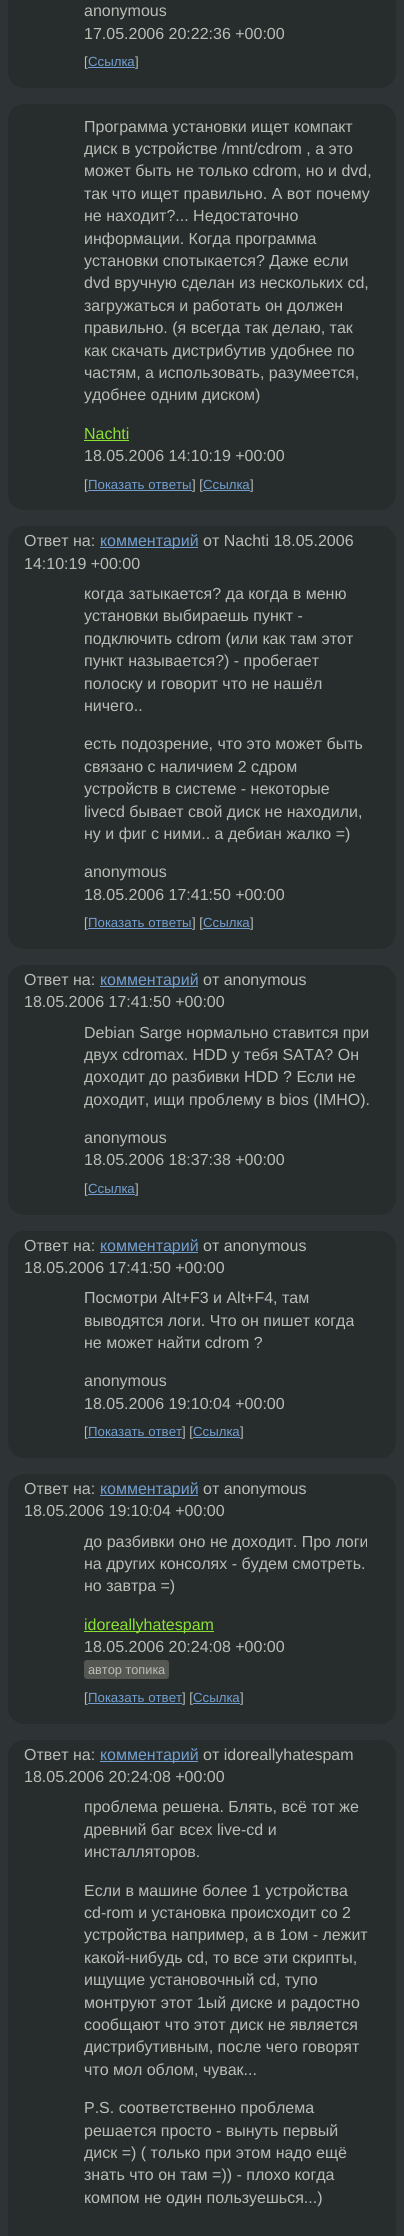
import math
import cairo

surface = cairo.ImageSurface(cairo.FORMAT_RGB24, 404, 2236)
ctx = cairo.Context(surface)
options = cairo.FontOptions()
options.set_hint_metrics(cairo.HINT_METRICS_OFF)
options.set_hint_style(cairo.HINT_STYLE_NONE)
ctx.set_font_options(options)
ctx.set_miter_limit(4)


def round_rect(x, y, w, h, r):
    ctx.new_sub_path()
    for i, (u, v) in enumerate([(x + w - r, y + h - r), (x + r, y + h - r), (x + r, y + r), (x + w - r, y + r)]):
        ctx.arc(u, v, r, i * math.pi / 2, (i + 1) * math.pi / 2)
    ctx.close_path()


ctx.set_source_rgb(0.18, 0.204, 0.212)
ctx.paint()
ctx.set_source_rgb(0.153, 0.173, 0.176)
round_rect(8, -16, 388, 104, 16)
ctx.fill()
ctx.select_font_face("Liberation Sans")
ctx.set_font_size(16)
ctx.set_source_rgb(0.729, 0.741, 0.714)
ctx.move_to(84, 16)
ctx.show_text("anonymous")
ctx.move_to(84, 39)
ctx.show_text("17.05.2006 20:22:36 +00:00")
ctx.set_font_size(13.25)
ctx.move_to(84, 66)
ctx.show_text("[")
ctx.set_source_rgb(0.447, 0.624, 0.812)
ctx.rectangle(88, 67, 47, 1)
ctx.fill()
ctx.move_to(88, 66)
ctx.show_text("Ссылка")
ctx.set_source_rgb(0.729, 0.741, 0.714)
ctx.move_to(135, 66)
ctx.show_text("]")
ctx.set_source_rgb(0.153, 0.173, 0.176)
round_rect(8, 104, 388, 406, 16)
ctx.fill()
ctx.set_font_size(16)
ctx.set_source_rgb(0.729, 0.741, 0.714)
ctx.move_to(84, 132)
ctx.show_text("Программа установки ищет компакт")
ctx.move_to(84, 154)
ctx.show_text("диск в устройстве /mnt/cdrom , а это")
ctx.move_to(84, 176)
ctx.show_text("может быть не только cdrom, но и dvd,")
ctx.move_to(84, 199)
ctx.show_text("так что ищет правильно. А вот почему")
ctx.move_to(84, 221)
ctx.show_text("не находит?... Недостаточно")
ctx.move_to(84, 244)
ctx.show_text("информации. Когда программа")
ctx.move_to(84, 266)
ctx.show_text("установки спотыкается? Даже если")
ctx.move_to(84, 288)
ctx.show_text("dvd вручную сделан из нескольких cd,")
ctx.move_to(84, 311)
ctx.show_text("загружаться и работать он должен")
ctx.move_to(84, 333)
ctx.show_text("правильно. (я всегда так делаю, так")
ctx.move_to(84, 356)
ctx.show_text("как скачать дистрибутив удобнее по")
ctx.move_to(84, 378)
ctx.show_text("частям, а использовать, разумеется,")
ctx.move_to(84, 400)
ctx.show_text("удобнее одним диском)")
ctx.set_source_rgb(0.541, 0.886, 0.204)
ctx.move_to(84, 439)
ctx.show_text("Nachti")
ctx.rectangle(84, 440, 45, 1)
ctx.fill()
ctx.set_source_rgb(0.729, 0.741, 0.714)
ctx.move_to(84, 461)
ctx.show_text("18.05.2006 14:10:19 +00:00")
ctx.set_font_size(13.25)
ctx.move_to(84, 489)
ctx.show_text("[")
ctx.set_source_rgb(0.447, 0.624, 0.812)
ctx.rectangle(88, 490, 104, 1)
ctx.fill()
ctx.move_to(88, 489)
ctx.show_text("Показать ответы")
ctx.set_source_rgb(0.729, 0.741, 0.714)
ctx.move_to(192, 489)
ctx.show_text("] [")
ctx.set_source_rgb(0.447, 0.624, 0.812)
ctx.rectangle(203, 490, 47, 1)
ctx.fill()
ctx.move_to(203, 489)
ctx.show_text("Ссылка")
ctx.set_source_rgb(0.729, 0.741, 0.714)
ctx.move_to(250, 489)
ctx.show_text("]")
ctx.set_source_rgb(0.153, 0.173, 0.176)
round_rect(8, 526, 388, 423, 16)
ctx.fill()
ctx.set_font_size(16)
ctx.set_source_rgb(0.729, 0.741, 0.714)
ctx.move_to(24, 546)
ctx.show_text("Ответ на:")
ctx.set_source_rgb(0.447, 0.624, 0.812)
ctx.rectangle(100, 547, 98, 1)
ctx.fill()
ctx.move_to(100, 546)
ctx.show_text("комментарий")
ctx.set_source_rgb(0.729, 0.741, 0.714)
ctx.move_to(203, 546)
ctx.show_text("от Nachti 18.05.2006")
ctx.move_to(24, 569)
ctx.show_text("14:10:19 +00:00")
ctx.move_to(84, 599)
ctx.show_text("когда затыкается? да когда в меню")
ctx.move_to(84, 621)
ctx.show_text("установки выбираешь пункт -")
ctx.move_to(84, 644)
ctx.show_text("подключить cdrom (или как там этот")
ctx.move_to(84, 666)
ctx.show_text("пункт называется?) - пробегает")
ctx.move_to(84, 689)
ctx.show_text("полоску и говорит что не нашёл")
ctx.move_to(84, 711)
ctx.show_text("ничего..")
ctx.move_to(84, 749)
ctx.show_text("есть подозрение, что это может быть")
ctx.move_to(84, 772)
ctx.show_text("связано с наличием 2 сдром")
ctx.move_to(84, 794)
ctx.show_text("устройств в системе - некоторые")
ctx.move_to(84, 817)
ctx.show_text("livecd бывает свой диск не находили,")
ctx.move_to(84, 839)
ctx.show_text("ну и фиг с ними.. а дебиан жалко =)")
ctx.move_to(84, 877)
ctx.show_text("anonymous")
ctx.move_to(84, 900)
ctx.show_text("18.05.2006 17:41:50 +00:00")
ctx.set_font_size(13.25)
ctx.move_to(84, 927)
ctx.show_text("[")
ctx.set_source_rgb(0.447, 0.624, 0.812)
ctx.rectangle(88, 928, 104, 1)
ctx.fill()
ctx.move_to(88, 927)
ctx.show_text("Показать ответы")
ctx.set_source_rgb(0.729, 0.741, 0.714)
ctx.move_to(192, 927)
ctx.show_text("] [")
ctx.set_source_rgb(0.447, 0.624, 0.812)
ctx.rectangle(203, 928, 47, 1)
ctx.fill()
ctx.move_to(203, 927)
ctx.show_text("Ссылка")
ctx.set_source_rgb(0.729, 0.741, 0.714)
ctx.move_to(250, 927)
ctx.show_text("]")
ctx.set_source_rgb(0.153, 0.173, 0.176)
round_rect(8, 965, 388, 250, 16)
ctx.fill()
ctx.set_font_size(16)
ctx.set_source_rgb(0.729, 0.741, 0.714)
ctx.move_to(24, 985)
ctx.show_text("Ответ на:")
ctx.set_source_rgb(0.447, 0.624, 0.812)
ctx.rectangle(100, 986, 98, 1)
ctx.fill()
ctx.move_to(100, 985)
ctx.show_text("комментарий")
ctx.set_source_rgb(0.729, 0.741, 0.714)
ctx.move_to(203, 985)
ctx.show_text("от anonymous")
ctx.move_to(24, 1007)
ctx.show_text("18.05.2006 17:41:50 +00:00")
ctx.move_to(84, 1038)
ctx.show_text("Debian Sarge нормально ставится при")
ctx.move_to(84, 1060)
ctx.show_text("двух cdromах. HDD у тебя SATA? Он")
ctx.move_to(84, 1082)
ctx.show_text("доходит до разбивки HDD ? Если не")
ctx.move_to(84, 1105)
ctx.show_text("доходит, ищи проблему в bios (IMHO).")
ctx.move_to(84, 1143)
ctx.show_text("anonymous")
ctx.move_to(84, 1165)
ctx.show_text("18.05.2006 18:37:38 +00:00")
ctx.set_font_size(13.25)
ctx.move_to(84, 1193)
ctx.show_text("[")
ctx.set_source_rgb(0.447, 0.624, 0.812)
ctx.rectangle(88, 1194, 47, 1)
ctx.fill()
ctx.move_to(88, 1193)
ctx.show_text("Ссылка")
ctx.set_source_rgb(0.729, 0.741, 0.714)
ctx.move_to(135, 1193)
ctx.show_text("]")
ctx.set_source_rgb(0.153, 0.173, 0.176)
round_rect(8, 1231, 388, 227, 16)
ctx.fill()
ctx.set_font_size(16)
ctx.set_source_rgb(0.729, 0.741, 0.714)
ctx.move_to(24, 1251)
ctx.show_text("Ответ на:")
ctx.set_source_rgb(0.447, 0.624, 0.812)
ctx.rectangle(100, 1252, 98, 1)
ctx.fill()
ctx.move_to(100, 1251)
ctx.show_text("комментарий")
ctx.set_source_rgb(0.729, 0.741, 0.714)
ctx.move_to(203, 1251)
ctx.show_text("от anonymous")
ctx.move_to(24, 1273)
ctx.show_text("18.05.2006 17:41:50 +00:00")
ctx.move_to(84, 1303)
ctx.show_text("Посмотри Alt+F3 и Alt+F4, там")
ctx.move_to(84, 1326)
ctx.show_text("выводятся логи. Что он пишет когда")
ctx.move_to(84, 1348)
ctx.show_text("не может найти cdrom ?")
ctx.move_to(84, 1386)
ctx.show_text("anonymous")
ctx.move_to(84, 1409)
ctx.show_text("18.05.2006 19:10:04 +00:00")
ctx.set_font_size(13.25)
ctx.move_to(84, 1436)
ctx.show_text("[")
ctx.set_source_rgb(0.447, 0.624, 0.812)
ctx.rectangle(88, 1437, 94, 1)
ctx.fill()
ctx.move_to(88, 1436)
ctx.show_text("Показать ответ")
ctx.set_source_rgb(0.729, 0.741, 0.714)
ctx.move_to(182, 1436)
ctx.show_text("] [")
ctx.set_source_rgb(0.447, 0.624, 0.812)
ctx.rectangle(193, 1437, 47, 1)
ctx.fill()
ctx.move_to(193, 1436)
ctx.show_text("Ссылка")
ctx.set_source_rgb(0.729, 0.741, 0.714)
ctx.move_to(240, 1436)
ctx.show_text("]")
ctx.set_source_rgb(0.153, 0.173, 0.176)
round_rect(8, 1474, 388, 250, 16)
ctx.fill()
ctx.set_font_size(16)
ctx.set_source_rgb(0.729, 0.741, 0.714)
ctx.move_to(24, 1494)
ctx.show_text("Ответ на:")
ctx.set_source_rgb(0.447, 0.624, 0.812)
ctx.rectangle(100, 1495, 98, 1)
ctx.fill()
ctx.move_to(100, 1494)
ctx.show_text("комментарий")
ctx.set_source_rgb(0.729, 0.741, 0.714)
ctx.move_to(203, 1494)
ctx.show_text("от anonymous")
ctx.move_to(24, 1516)
ctx.show_text("18.05.2006 19:10:04 +00:00")
ctx.move_to(84, 1547)
ctx.show_text("до разбивки оно не доходит. Про логи")
ctx.move_to(84, 1569)
ctx.show_text("на других консолях - будем смотреть.")
ctx.move_to(84, 1591)
ctx.show_text("но завтра =)")
ctx.set_source_rgb(0.541, 0.886, 0.204)
ctx.rectangle(84, 1631, 130, 1)
ctx.fill()
ctx.move_to(84, 1630)
ctx.show_text("idoreallyhatespam")
ctx.set_source_rgb(0.729, 0.741, 0.714)
ctx.move_to(84, 1652)
ctx.show_text("18.05.2006 20:24:08 +00:00")
ctx.set_source_rgb(0.333, 0.341, 0.325)
round_rect(84, 1660, 85, 19, 3)
ctx.fill()
ctx.set_font_size(12.75)
ctx.set_source_rgb(0.729, 0.741, 0.714)
ctx.move_to(88, 1674)
ctx.show_text("автор топика")
ctx.set_font_size(13.25)
ctx.move_to(84, 1702)
ctx.show_text("[")
ctx.set_source_rgb(0.447, 0.624, 0.812)
ctx.rectangle(88, 1703, 94, 1)
ctx.fill()
ctx.move_to(88, 1702)
ctx.show_text("Показать ответ")
ctx.set_source_rgb(0.729, 0.741, 0.714)
ctx.move_to(182, 1702)
ctx.show_text("] [")
ctx.set_source_rgb(0.447, 0.624, 0.812)
ctx.rectangle(193, 1703, 47, 1)
ctx.fill()
ctx.move_to(193, 1702)
ctx.show_text("Ссылка")
ctx.set_source_rgb(0.729, 0.741, 0.714)
ctx.move_to(240, 1702)
ctx.show_text("]")
ctx.set_source_rgb(0.153, 0.173, 0.176)
round_rect(8, 1740, 388, 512, 16)
ctx.fill()
ctx.set_font_size(16)
ctx.set_source_rgb(0.729, 0.741, 0.714)
ctx.move_to(24, 1760)
ctx.show_text("Ответ на:")
ctx.set_source_rgb(0.447, 0.624, 0.812)
ctx.rectangle(100, 1761, 98, 1)
ctx.fill()
ctx.move_to(100, 1760)
ctx.show_text("комментарий")
ctx.set_source_rgb(0.729, 0.741, 0.714)
ctx.move_to(203, 1760)
ctx.show_text("от idoreallyhatespam")
ctx.move_to(24, 1782)
ctx.show_text("18.05.2006 20:24:08 +00:00")
ctx.move_to(84, 1812)
ctx.show_text("проблема решена. Блять, всё тот же")
ctx.move_to(84, 1835)
ctx.show_text("древний баг всех live-cd и")
ctx.move_to(84, 1857)
ctx.show_text("инсталляторов.")
ctx.move_to(84, 1896)
ctx.show_text("Если в машине более 1 устройства")
ctx.move_to(84, 1918)
ctx.show_text("cd-rom и установка происходит со 2")
ctx.move_to(84, 1940)
ctx.show_text("устройства например, а в 1ом - лежит")
ctx.move_to(84, 1963)
ctx.show_text("какой-нибудь cd, то все эти скрипты,")
ctx.move_to(84, 1985)
ctx.show_text("ищущие установочный cd, тупо")
ctx.move_to(84, 2008)
ctx.show_text("монтруют этот 1ый диске и радостно")
ctx.move_to(84, 2030)
ctx.show_text("сообщают что этот диск не является")
ctx.move_to(84, 2052)
ctx.show_text("дистрибутивным, после чего говорят")
ctx.move_to(84, 2075)
ctx.show_text("что мол облом, чувак...")
ctx.move_to(84, 2113)
ctx.show_text("P.S. соответственно проблема")
ctx.move_to(84, 2136)
ctx.show_text("решается просто - вынуть первый")
ctx.move_to(84, 2158)
ctx.show_text("диск =) ( только при этом надо ещё")
ctx.move_to(84, 2180)
ctx.show_text("знать что он там =)) - плохо когда")
ctx.move_to(84, 2203)
ctx.show_text("компом не один пользуешься...)")
surface.write_to_png("page.png")
